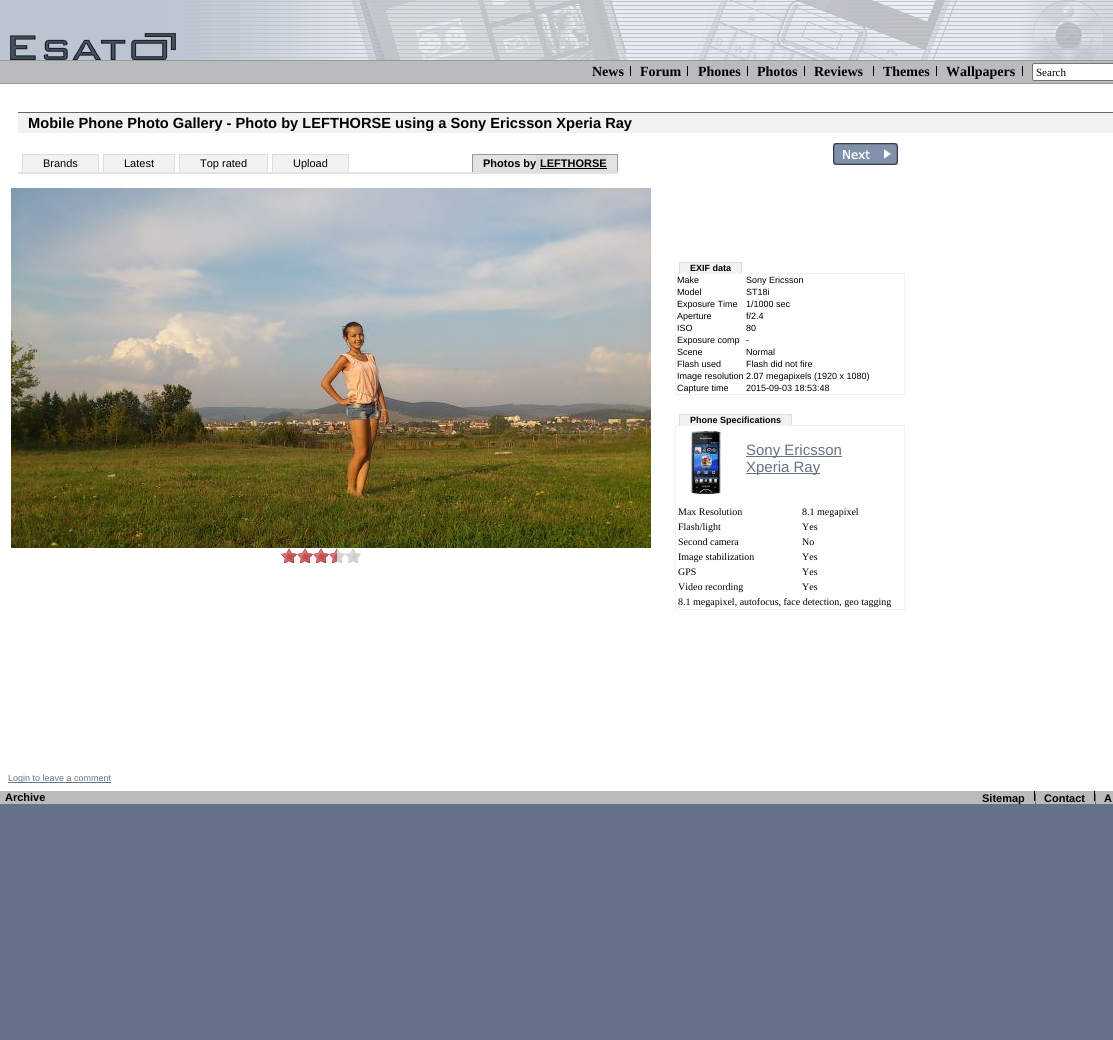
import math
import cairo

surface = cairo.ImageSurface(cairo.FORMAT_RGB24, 1113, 1040)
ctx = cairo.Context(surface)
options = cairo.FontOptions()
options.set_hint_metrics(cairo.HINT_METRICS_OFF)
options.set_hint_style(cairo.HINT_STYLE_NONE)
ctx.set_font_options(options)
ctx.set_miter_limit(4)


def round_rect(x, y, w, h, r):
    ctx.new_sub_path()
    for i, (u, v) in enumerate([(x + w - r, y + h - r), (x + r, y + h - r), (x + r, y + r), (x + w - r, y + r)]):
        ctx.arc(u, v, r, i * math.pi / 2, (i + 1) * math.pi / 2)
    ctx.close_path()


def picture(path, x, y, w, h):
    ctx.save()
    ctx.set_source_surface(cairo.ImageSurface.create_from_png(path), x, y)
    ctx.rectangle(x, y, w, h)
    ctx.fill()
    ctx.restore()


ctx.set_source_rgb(0.4, 0.447, 0.529)
ctx.paint()
picture("img1.png", 0, 0, 1113, 60)
ctx.set_source_rgb(0.725, 0.733, 0.749)
ctx.rectangle(0, 61, 1113, 22)
ctx.fill()
ctx.set_source_rgb(0.6, 0.6, 0.6)
ctx.rectangle(0, 60, 1113, 1)
ctx.fill()
ctx.rectangle(0, 83, 1113, 1)
ctx.fill()
ctx.select_font_face("Liberation Serif", cairo.FONT_SLANT_NORMAL, cairo.FONT_WEIGHT_BOLD)
ctx.set_font_size(14)
ctx.set_source_rgb(0, 0, 0)
ctx.move_to(592, 76)
ctx.show_text("News")
ctx.rectangle(630, 66, 1, 10)
ctx.fill()
ctx.move_to(640, 76)
ctx.show_text("Forum")
ctx.rectangle(687, 66, 1, 10)
ctx.fill()
ctx.move_to(698, 76)
ctx.show_text("Phones")
ctx.rectangle(747, 66, 1, 10)
ctx.fill()
ctx.move_to(757, 76)
ctx.show_text("Photos")
ctx.rectangle(804, 66, 1, 10)
ctx.fill()
ctx.move_to(814, 76)
ctx.show_text("Reviews")
ctx.rectangle(873, 66, 1, 10)
ctx.fill()
ctx.move_to(883, 76)
ctx.show_text("Themes")
ctx.rectangle(936, 66, 1, 10)
ctx.fill()
ctx.move_to(946, 76)
ctx.show_text("Wallpapers")
ctx.rectangle(1022, 66, 1, 10)
ctx.fill()
ctx.set_source_rgb(1, 1, 1)
round_rect(1032.5, 63.5, 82, 17, 1.5)
ctx.fill_preserve()
ctx.set_source_rgb(0.463, 0.463, 0.463)
ctx.set_line_width(1)
ctx.stroke()
ctx.select_font_face("Liberation Serif")
ctx.set_font_size(11)
ctx.set_source_rgb(0, 0, 0)
ctx.move_to(1036, 76)
ctx.show_text("Search")
ctx.set_source_rgb(1, 1, 1)
ctx.rectangle(0, 84, 1113, 707)
ctx.fill()
ctx.set_source_rgb(0.949, 0.949, 0.949)
ctx.rectangle(18, 113, 1095, 20)
ctx.fill()
ctx.set_source_rgb(0.4, 0.4, 0.4)
ctx.rectangle(18, 112, 1095, 1)
ctx.fill()
ctx.select_font_face("Liberation Sans", cairo.FONT_SLANT_NORMAL, cairo.FONT_WEIGHT_BOLD)
ctx.set_font_size(14.65)
ctx.set_source_rgb(0, 0, 0)
ctx.move_to(28, 128)
ctx.show_text("Mobile Phone Photo Gallery - Photo by LEFTHORSE using a Sony Ericsson Xperia Ray")
ctx.set_source_rgb(0.89, 0.89, 0.89)
ctx.rectangle(18, 172, 600, 2)
ctx.fill()
ctx.set_source_rgb(0.949, 0.949, 0.949)
ctx.rectangle(23, 155, 75, 16)
ctx.fill()
ctx.set_source_rgb(0.867, 0.867, 0.867)
ctx.rectangle(22, 154, 77, 1)
ctx.fill()
ctx.rectangle(98, 154, 1, 18)
ctx.fill()
ctx.set_source_rgb(0.949, 0.949, 0.949)
ctx.rectangle(22, 171, 77, 1)
ctx.fill()
ctx.set_source_rgb(0.867, 0.867, 0.867)
ctx.rectangle(22, 154, 1, 18)
ctx.fill()
ctx.select_font_face("Liberation Sans")
ctx.set_font_size(11)
ctx.set_source_rgb(0, 0, 0)
ctx.move_to(43, 167)
ctx.show_text("Brands")
ctx.set_source_rgb(0.949, 0.949, 0.949)
ctx.rectangle(104, 155, 70, 16)
ctx.fill()
ctx.set_source_rgb(0.867, 0.867, 0.867)
ctx.rectangle(103, 154, 72, 1)
ctx.fill()
ctx.rectangle(174, 154, 1, 18)
ctx.fill()
ctx.set_source_rgb(0.949, 0.949, 0.949)
ctx.rectangle(103, 171, 72, 1)
ctx.fill()
ctx.set_source_rgb(0.867, 0.867, 0.867)
ctx.rectangle(103, 154, 1, 18)
ctx.fill()
ctx.set_source_rgb(0, 0, 0)
ctx.move_to(124, 167)
ctx.show_text("Latest")
ctx.set_source_rgb(0.949, 0.949, 0.949)
ctx.rectangle(180, 155, 87, 16)
ctx.fill()
ctx.set_source_rgb(0.867, 0.867, 0.867)
ctx.rectangle(179, 154, 89, 1)
ctx.fill()
ctx.rectangle(267, 154, 1, 18)
ctx.fill()
ctx.set_source_rgb(0.949, 0.949, 0.949)
ctx.rectangle(179, 171, 89, 1)
ctx.fill()
ctx.set_source_rgb(0.867, 0.867, 0.867)
ctx.rectangle(179, 154, 1, 18)
ctx.fill()
ctx.set_source_rgb(0, 0, 0)
ctx.move_to(200, 167)
ctx.show_text("Top rated")
ctx.set_source_rgb(0.949, 0.949, 0.949)
ctx.rectangle(273, 155, 75, 16)
ctx.fill()
ctx.set_source_rgb(0.867, 0.867, 0.867)
ctx.rectangle(272, 154, 77, 1)
ctx.fill()
ctx.rectangle(348, 154, 1, 18)
ctx.fill()
ctx.set_source_rgb(0.949, 0.949, 0.949)
ctx.rectangle(272, 171, 77, 1)
ctx.fill()
ctx.set_source_rgb(0.867, 0.867, 0.867)
ctx.rectangle(272, 154, 1, 18)
ctx.fill()
ctx.set_source_rgb(0, 0, 0)
ctx.move_to(293, 167)
ctx.show_text("Upload")
ctx.set_source_rgb(0.89, 0.89, 0.89)
ctx.rectangle(473, 155, 144, 16)
ctx.fill()
ctx.set_source_rgb(0.6, 0.6, 0.6)
ctx.rectangle(472, 154, 146, 1)
ctx.fill()
ctx.rectangle(617, 154, 1, 18)
ctx.fill()
ctx.set_source_rgb(0.867, 0.867, 0.867)
ctx.rectangle(472, 171, 146, 1)
ctx.fill()
ctx.set_source_rgb(0.6, 0.6, 0.6)
ctx.rectangle(472, 154, 1, 18)
ctx.fill()
ctx.set_source_rgb(0.867, 0.867, 0.867)
ctx.rectangle(536, 155, 71, 16)
ctx.fill()
ctx.select_font_face("Liberation Sans", cairo.FONT_SLANT_NORMAL, cairo.FONT_WEIGHT_BOLD)
ctx.set_source_rgb(0, 0, 0)
ctx.move_to(483, 167)
ctx.show_text("Photos by")
ctx.move_to(540, 167)
ctx.show_text("LEFTHORSE")
ctx.rectangle(540, 168, 67, 1)
ctx.fill()
picture("img2.png", 833, 143, 65, 22)
picture("img3.png", 11, 188, 640, 360)
picture("img4.png", 281, 548, 8, 15)
picture("img5.png", 289, 548, 8, 15)
picture("img4.png", 297, 548, 8, 15)
picture("img5.png", 305, 548, 8, 15)
picture("img4.png", 313, 548, 8, 15)
picture("img5.png", 321, 548, 8, 15)
picture("img4.png", 329, 548, 8, 15)
picture("img6.png", 337, 548, 8, 15)
picture("img7.png", 345, 548, 8, 15)
picture("img6.png", 353, 548, 8, 15)
ctx.set_source_rgb(0.949, 0.949, 0.949)
ctx.rectangle(680, 263, 61, 10)
ctx.fill()
ctx.set_font_size(9)
ctx.set_source_rgb(0, 0, 0)
ctx.move_to(690, 271)
ctx.show_text("EXIF data")
ctx.set_source_rgb(0.867, 0.867, 0.867)
ctx.rectangle(679, 262, 63, 1)
ctx.fill()
ctx.rectangle(675.5, 273.5, 229, 121)
ctx.set_source_rgb(0.949, 0.949, 0.949)
ctx.stroke()
ctx.set_source_rgb(0.867, 0.867, 0.867)
ctx.rectangle(741, 262, 1, 12)
ctx.fill()
ctx.set_source_rgb(0.949, 0.949, 0.949)
ctx.rectangle(741, 273, 1, 1)
ctx.fill()
ctx.set_source_rgb(0.867, 0.867, 0.867)
ctx.rectangle(679, 262, 1, 12)
ctx.fill()
ctx.select_font_face("Liberation Sans")
ctx.set_source_rgb(0, 0, 0)
ctx.move_to(677, 283)
ctx.show_text("Make")
ctx.move_to(746, 283)
ctx.show_text("Sony Ericsson")
ctx.move_to(677, 295)
ctx.show_text("Model")
ctx.move_to(746, 295)
ctx.show_text("ST18i")
ctx.move_to(677, 307)
ctx.show_text("Exposure Time")
ctx.move_to(746, 307)
ctx.show_text("1/1000 sec")
ctx.move_to(677, 319)
ctx.show_text("Aperture")
ctx.move_to(746, 319)
ctx.show_text("f/2.4")
ctx.move_to(677, 331)
ctx.show_text("ISO")
ctx.move_to(746, 331)
ctx.show_text("80")
ctx.move_to(677, 343)
ctx.show_text("Exposure comp")
ctx.move_to(746, 343)
ctx.show_text("-")
ctx.move_to(677, 355)
ctx.show_text("Scene")
ctx.move_to(746, 355)
ctx.show_text("Normal")
ctx.move_to(677, 367)
ctx.show_text("Flash used")
ctx.move_to(746, 367)
ctx.show_text("Flash did not fire")
ctx.move_to(677, 379)
ctx.show_text("Image resolution")
ctx.move_to(746, 379)
ctx.show_text("2.07 megapixels (1920 x 1080)")
ctx.move_to(677, 391)
ctx.show_text("Capture time")
ctx.move_to(746, 391)
ctx.show_text("2015-09-03 18:53:48")
ctx.set_source_rgb(0.949, 0.949, 0.949)
ctx.rectangle(680, 415, 111, 10)
ctx.fill()
ctx.select_font_face("Liberation Sans", cairo.FONT_SLANT_NORMAL, cairo.FONT_WEIGHT_BOLD)
ctx.set_source_rgb(0, 0, 0)
ctx.move_to(690, 423)
ctx.show_text("Phone Specifications")
ctx.set_source_rgb(0.867, 0.867, 0.867)
ctx.rectangle(679, 414, 113, 1)
ctx.fill()
ctx.rectangle(675.5, 425.5, 229, 184)
ctx.set_source_rgb(0.949, 0.949, 0.949)
ctx.stroke()
ctx.set_source_rgb(0.867, 0.867, 0.867)
ctx.rectangle(791, 414, 1, 12)
ctx.fill()
ctx.set_source_rgb(0.949, 0.949, 0.949)
ctx.rectangle(791, 425, 1, 1)
ctx.fill()
ctx.set_source_rgb(0.867, 0.867, 0.867)
ctx.rectangle(679, 414, 1, 12)
ctx.fill()
picture("img8.png", 691, 431, 30, 63)
ctx.set_source_rgb(0.4, 0.447, 0.529)
ctx.rectangle(746, 456, 96, 1)
ctx.fill()
ctx.select_font_face("Liberation Sans")
ctx.set_font_size(15)
ctx.move_to(746, 455)
ctx.show_text("Sony Ericsson")
ctx.rectangle(746, 473, 74, 1)
ctx.fill()
ctx.move_to(746, 472)
ctx.show_text("Xperia Ray")
ctx.select_font_face("Liberation Serif")
ctx.set_font_size(10)
ctx.set_source_rgb(0, 0, 0)
ctx.move_to(678, 515)
ctx.show_text("Max Resolution")
ctx.move_to(802, 515)
ctx.show_text("8.1 megapixel")
ctx.move_to(678, 530)
ctx.show_text("Flash/light")
ctx.move_to(802, 530)
ctx.show_text("Yes")
ctx.move_to(678, 545)
ctx.show_text("Second camera")
ctx.move_to(802, 545)
ctx.show_text("No")
ctx.move_to(678, 560)
ctx.show_text("Image stabilization")
ctx.move_to(802, 560)
ctx.show_text("Yes")
ctx.move_to(678, 575)
ctx.show_text("GPS")
ctx.move_to(802, 575)
ctx.show_text("Yes")
ctx.move_to(678, 590)
ctx.show_text("Video recording")
ctx.move_to(802, 590)
ctx.show_text("Yes")
ctx.move_to(678, 605)
ctx.show_text("8.1 megapixel, autofocus, face detection, geo tagging")
ctx.set_source_rgb(0.4, 0.447, 0.529)
ctx.rectangle(8, 782, 103, 1)
ctx.fill()
ctx.select_font_face("Liberation Sans")
ctx.set_font_size(9)
ctx.move_to(8, 781)
ctx.show_text("Login to leave a comment")
ctx.set_source_rgb(0.725, 0.733, 0.749)
ctx.rectangle(0, 791, 1113, 13)
ctx.fill()
ctx.select_font_face("Liberation Sans", cairo.FONT_SLANT_NORMAL, cairo.FONT_WEIGHT_BOLD)
ctx.set_font_size(11)
ctx.set_source_rgb(0, 0, 0)
ctx.move_to(5, 801)
ctx.show_text("Archive")
ctx.move_to(982, 802)
ctx.show_text("Sitemap")
ctx.rectangle(1034, 791, 1, 10)
ctx.fill()
ctx.select_font_face("Liberation Sans")
ctx.set_source_rgb(0.4, 0.4, 0.4)
ctx.move_to(1034, 802)
ctx.show_text("|")
ctx.select_font_face("Liberation Sans", cairo.FONT_SLANT_NORMAL, cairo.FONT_WEIGHT_BOLD)
ctx.set_source_rgb(0, 0, 0)
ctx.move_to(1044, 802)
ctx.show_text("Contact")
ctx.rectangle(1094, 791, 1, 10)
ctx.fill()
ctx.select_font_face("Liberation Sans")
ctx.set_source_rgb(0.4, 0.4, 0.4)
ctx.move_to(1094, 802)
ctx.show_text("|")
ctx.select_font_face("Liberation Sans", cairo.FONT_SLANT_NORMAL, cairo.FONT_WEIGHT_BOLD)
ctx.set_source_rgb(0, 0, 0)
ctx.move_to(1104, 802)
ctx.show_text("A")
surface.write_to_png("page.png")
